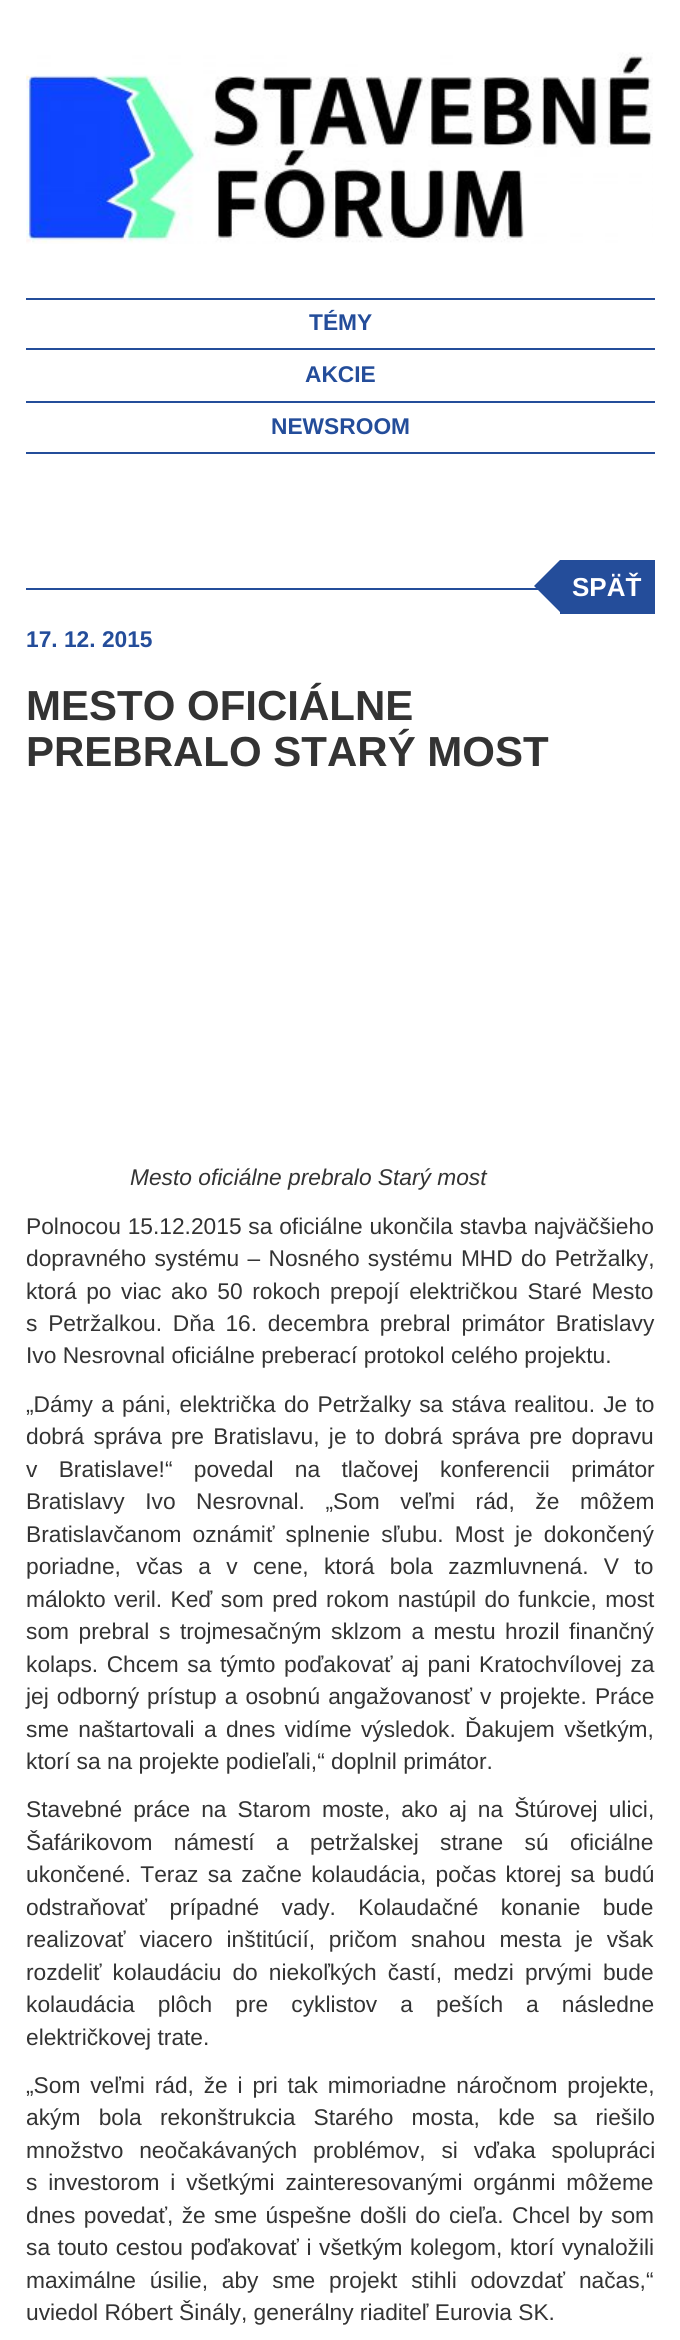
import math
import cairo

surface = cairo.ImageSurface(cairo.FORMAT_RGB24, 680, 2340)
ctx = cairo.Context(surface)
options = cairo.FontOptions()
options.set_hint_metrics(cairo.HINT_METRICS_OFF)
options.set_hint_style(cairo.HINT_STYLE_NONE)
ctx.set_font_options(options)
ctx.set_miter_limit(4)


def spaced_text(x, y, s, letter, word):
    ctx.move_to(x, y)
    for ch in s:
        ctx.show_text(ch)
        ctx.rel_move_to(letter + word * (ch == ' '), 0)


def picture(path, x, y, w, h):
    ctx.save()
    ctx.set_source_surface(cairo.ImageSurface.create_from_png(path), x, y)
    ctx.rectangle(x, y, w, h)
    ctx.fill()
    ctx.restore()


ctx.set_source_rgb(1, 1, 1)
ctx.paint()
picture("img1.png", 26, 52, 627, 192)
ctx.set_source_rgb(0.141, 0.302, 0.604)
ctx.rectangle(26, 298, 629, 2)
ctx.fill()
ctx.select_font_face("Liberation Sans", cairo.FONT_SLANT_NORMAL, cairo.FONT_WEIGHT_BOLD)
ctx.set_font_size(22.75)
ctx.move_to(309, 330)
ctx.show_text("TÉMY")
ctx.rectangle(26, 348, 629, 2)
ctx.fill()
ctx.move_to(305, 382)
ctx.show_text("AKCIE")
ctx.rectangle(26, 401, 629, 2)
ctx.fill()
ctx.rectangle(26, 452, 629, 2)
ctx.fill()
ctx.move_to(271, 434)
ctx.show_text("NEWSROOM")
ctx.rectangle(560, 560, 95, 54)
ctx.fill()
ctx.rectangle(26, 588, 512, 2)
ctx.fill()
ctx.new_path()
ctx.move_to(560, 560)
ctx.line_to(560, 612)
ctx.line_to(534, 586)
ctx.close_path()
ctx.fill()
ctx.set_font_size(26)
ctx.set_source_rgb(1, 1, 1)
ctx.move_to(572, 596)
ctx.show_text("SPÄŤ")
ctx.set_font_size(22.75)
ctx.set_source_rgb(0.141, 0.302, 0.604)
ctx.move_to(26, 647)
ctx.show_text("17. 12. 2015")
ctx.set_font_size(42)
ctx.set_source_rgb(0.2, 0.2, 0.2)
ctx.move_to(26, 720)
ctx.show_text("MESTO OFICIÁLNE")
ctx.move_to(26, 766)
ctx.show_text("PREBRALO STARÝ MOST")
ctx.select_font_face("Liberation Sans", cairo.FONT_SLANT_ITALIC)
ctx.set_font_size(22.75)
ctx.move_to(130, 1185)
ctx.show_text("Mesto oficiálne prebralo Starý most")
ctx.select_font_face("Liberation Sans")
spaced_text(26, 1234, "Polnocou 15.12.2015 sa oficiálne ukončila stavba najväčšieho", 0, 0.5)
spaced_text(26, 1266, "dopravného systému – Nosného systému MHD do Petržalky,", 0, 2)
spaced_text(26, 1299, "ktorá po viac ako 50 rokoch prepojí električkou Staré Mesto", 0, 3.25)
spaced_text(26, 1331, "s Petržalkou. Dňa 16. decembra prebral primátor Bratislavy", 0, 4.5)
ctx.move_to(26, 1363)
ctx.show_text("Ivo Nesrovnal oficiálne preberací protokol celého projektu.")
spaced_text(26, 1412, "„Dámy a páni, električka do Petržalky sa stáva realitou. Je to", 0, 1.9)
spaced_text(26, 1444, "dobrá správa pre Bratislavu, je to dobrá správa pre dopravu", 0, 3)
spaced_text(26, 1477, "v Bratislave!“ povedal na tlačovej konferencii primátor", 0, 15)
spaced_text(26, 1509, "Bratislavy Ivo Nesrovnal. „Som veľmi rád, že môžem", 0, 14.25)
spaced_text(26, 1542, "Bratislavčanom oznámiť splnenie sľubu. Most je dokončený", 0, 4.75)
spaced_text(26, 1574, "poriadne, včas a v cene, ktorá bola zazmluvnená. V to", 0, 9)
spaced_text(26, 1607, "málokto veril. Keď som pred rokom nastúpil do funkcie, most", 0, 2.1)
spaced_text(26, 1639, "som prebral s trojmesačným sklzom a mestu hrozil finančný", 0, 3.25)
spaced_text(26, 1672, "kolaps. Chcem sa týmto poďakovať aj pani Kratochvílovej za", 0, 2.25)
spaced_text(26, 1704, "jej odborný prístup a osobnú angažovanosť v projekte. Práce", 0, 1.75)
spaced_text(26, 1737, "sme naštartovali a dnes vidíme výsledok. Ďakujem všetkým,", 0, 3)
ctx.move_to(26, 1769)
ctx.show_text("ktorí sa na projekte podieľali,“ doplnil primátor.")
spaced_text(26, 1817, "Stavebné práce na Starom moste, ako aj na Štúrovej ulici,", 0, 4.75)
spaced_text(26, 1850, "Šafárikovom námestí a petržalskej strane sú oficiálne", 0, 15)
spaced_text(26, 1882, "ukončené. Teraz sa začne kolaudácia, počas ktorej sa budú", 0, 3)
spaced_text(26, 1915, "odstraňovať prípadné vady. Kolaudačné konanie bude", 0, 16)
spaced_text(26, 1947, "realizovať viacero inštitúcií, pričom snahou mesta je však", 0, 7.5)
spaced_text(26, 1980, "rozdeliť kolaudáciu do niekoľkých častí, medzi prvými bude", 0, 4.75)
spaced_text(26, 2012, "kolaudácia plôch pre cyklistov a peších a následne", 0, 16.75)
ctx.move_to(26, 2045)
ctx.show_text("električkovej trate.")
spaced_text(26, 2093, "„Som veľmi rád, že i pri tak mimoriadne náročnom projekte,", 0, 3.5)
spaced_text(26, 2125, "akým bola rekonštrukcia Starého mosta, kde sa riešilo", 0, 12)
spaced_text(26, 2158, "množstvo neočakávaných problémov, si vďaka spolupráci", 0, 9.5)
spaced_text(26, 2190, "s investorom i všetkými zainteresovanými orgánmi môžeme", 0, 4.5)
spaced_text(26, 2223, "dnes povedať, že sme úspešne došli do cieľa. Chcel by som", 0, 2.1)
spaced_text(26, 2255, "sa touto cestou poďakovať i všetkým kolegom, ktorí vynaložili", 0, 1.25)
spaced_text(26, 2288, "maximálne úsilie, aby sme projekt stihli odovzdať načas,“", 0, 7.5)
ctx.move_to(26, 2320)
ctx.show_text("uviedol Róbert Šinály, generálny riaditeľ Eurovia SK.")
surface.write_to_png("page.png")
